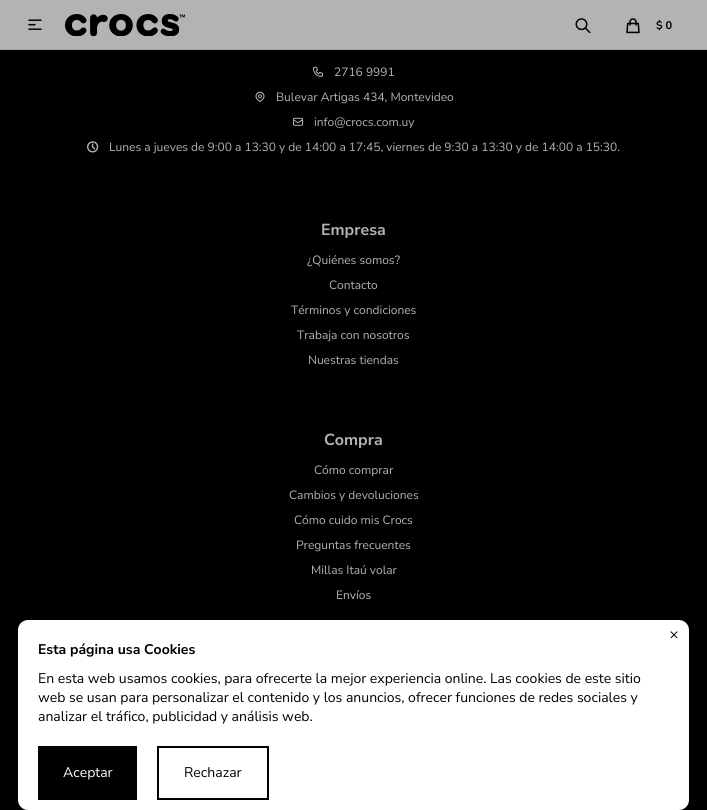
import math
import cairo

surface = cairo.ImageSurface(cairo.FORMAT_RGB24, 707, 810)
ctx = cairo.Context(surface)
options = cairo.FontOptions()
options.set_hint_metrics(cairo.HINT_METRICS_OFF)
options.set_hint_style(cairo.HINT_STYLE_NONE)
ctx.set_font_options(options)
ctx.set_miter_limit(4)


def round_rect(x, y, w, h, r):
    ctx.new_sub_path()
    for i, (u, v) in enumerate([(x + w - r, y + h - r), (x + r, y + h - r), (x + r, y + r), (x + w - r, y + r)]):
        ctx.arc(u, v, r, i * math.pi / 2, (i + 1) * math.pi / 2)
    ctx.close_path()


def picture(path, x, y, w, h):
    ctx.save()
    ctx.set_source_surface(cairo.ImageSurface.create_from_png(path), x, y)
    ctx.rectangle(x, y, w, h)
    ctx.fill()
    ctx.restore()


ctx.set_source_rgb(0, 0, 0)
ctx.paint()
ctx.set_source_rgb(0.702, 0.702, 0.702)
ctx.rectangle(0, 0, 707, 49)
ctx.fill()
ctx.set_source_rgb(0.651, 0.651, 0.651)
ctx.rectangle(0, 49, 707, 1)
ctx.fill()
picture("img1.png", 28, 19, 14, 11)
picture("img2.png", 65, 14, 120, 22)
picture("img3.png", 575, 18, 16, 16)
picture("img4.png", 626, 18, 14, 16)
ctx.select_font_face("Nunito Sans", cairo.FONT_SLANT_NORMAL, cairo.FONT_WEIGHT_BOLD)
ctx.set_font_size(11)
ctx.set_source_rgb(0, 0, 0)
ctx.move_to(656, 29)
ctx.show_text("$ 0")
picture("img5.png", 313, 66, 10, 11)
ctx.select_font_face("Nunito Sans")
ctx.set_font_size(12)
ctx.set_source_rgb(0.702, 0.702, 0.702)
ctx.move_to(334, 76)
ctx.show_text("2716 9991")
picture("img6.png", 255, 91, 10, 11)
ctx.move_to(276, 101)
ctx.show_text("Bulevar Artigas 434, Montevideo")
picture("img7.png", 293, 117, 10, 9)
ctx.move_to(314, 126)
ctx.show_text("info@crocs.com.uy")
picture("img8.png", 87, 141, 12, 12)
ctx.move_to(109, 151)
ctx.show_text("Lunes a jueves de 9:00 a 13:30 y de 14:00 a 17:45, viernes de 9:30 a 13:30 y de 14:00 a 15:30.")
ctx.select_font_face("Nunito Sans", cairo.FONT_SLANT_NORMAL, cairo.FONT_WEIGHT_BOLD)
ctx.set_font_size(16)
ctx.move_to(321, 235)
ctx.show_text("Empresa")
ctx.select_font_face("Nunito Sans")
ctx.set_font_size(12)
ctx.move_to(307, 264)
ctx.show_text("¿Quiénes somos?")
ctx.move_to(329, 289)
ctx.show_text("Contacto")
ctx.move_to(291, 314)
ctx.show_text("Términos y condiciones")
ctx.move_to(297, 339)
ctx.show_text("Trabaja con nosotros")
ctx.move_to(308, 364)
ctx.show_text("Nuestras tiendas")
ctx.select_font_face("Nunito Sans", cairo.FONT_SLANT_NORMAL, cairo.FONT_WEIGHT_BOLD)
ctx.set_font_size(16)
ctx.move_to(324, 445)
ctx.show_text("Compra")
ctx.select_font_face("Nunito Sans")
ctx.set_font_size(12)
ctx.move_to(314, 474)
ctx.show_text("Cómo comprar")
ctx.move_to(289, 499)
ctx.show_text("Cambios y devoluciones")
ctx.move_to(294, 524)
ctx.show_text("Cómo cuido mis Crocs")
ctx.move_to(296, 549)
ctx.show_text("Preguntas frecuentes")
ctx.move_to(311, 574)
ctx.show_text("Millas Itaú volar")
ctx.move_to(336, 599)
ctx.show_text("Envíos")
ctx.set_source_rgb(1, 1, 1)
round_rect(18, 620, 671, 190, 10)
ctx.fill()
picture("img9.png", 670, 631, 8, 8)
ctx.select_font_face("Nunito Sans", cairo.FONT_SLANT_NORMAL, cairo.FONT_WEIGHT_BOLD)
ctx.set_font_size(14)
ctx.set_source_rgb(0, 0, 0)
ctx.move_to(38, 654)
ctx.show_text("Esta página usa Cookies")
ctx.select_font_face("Nunito Sans")
ctx.move_to(38, 683)
ctx.show_text("En esta web usamos cookies, para ofrecerte la mejor experiencia online. Las cookies de este sitio")
ctx.move_to(38, 702)
ctx.show_text("web se usan para personalizar el contenido y los anuncios, ofrecer funciones de redes sociales y")
ctx.move_to(38, 721)
ctx.show_text("analizar el tráfico, publicidad y análisis web.")
ctx.rectangle(38, 746, 99, 54)
ctx.fill()
ctx.set_source_rgb(1, 1, 1)
ctx.move_to(63, 777)
ctx.show_text("Aceptar")
ctx.rectangle(158, 747, 110, 52)
ctx.set_source_rgb(0, 0, 0)
ctx.stroke()
ctx.move_to(184, 777)
ctx.show_text("Rechazar")
surface.write_to_png("page.png")
